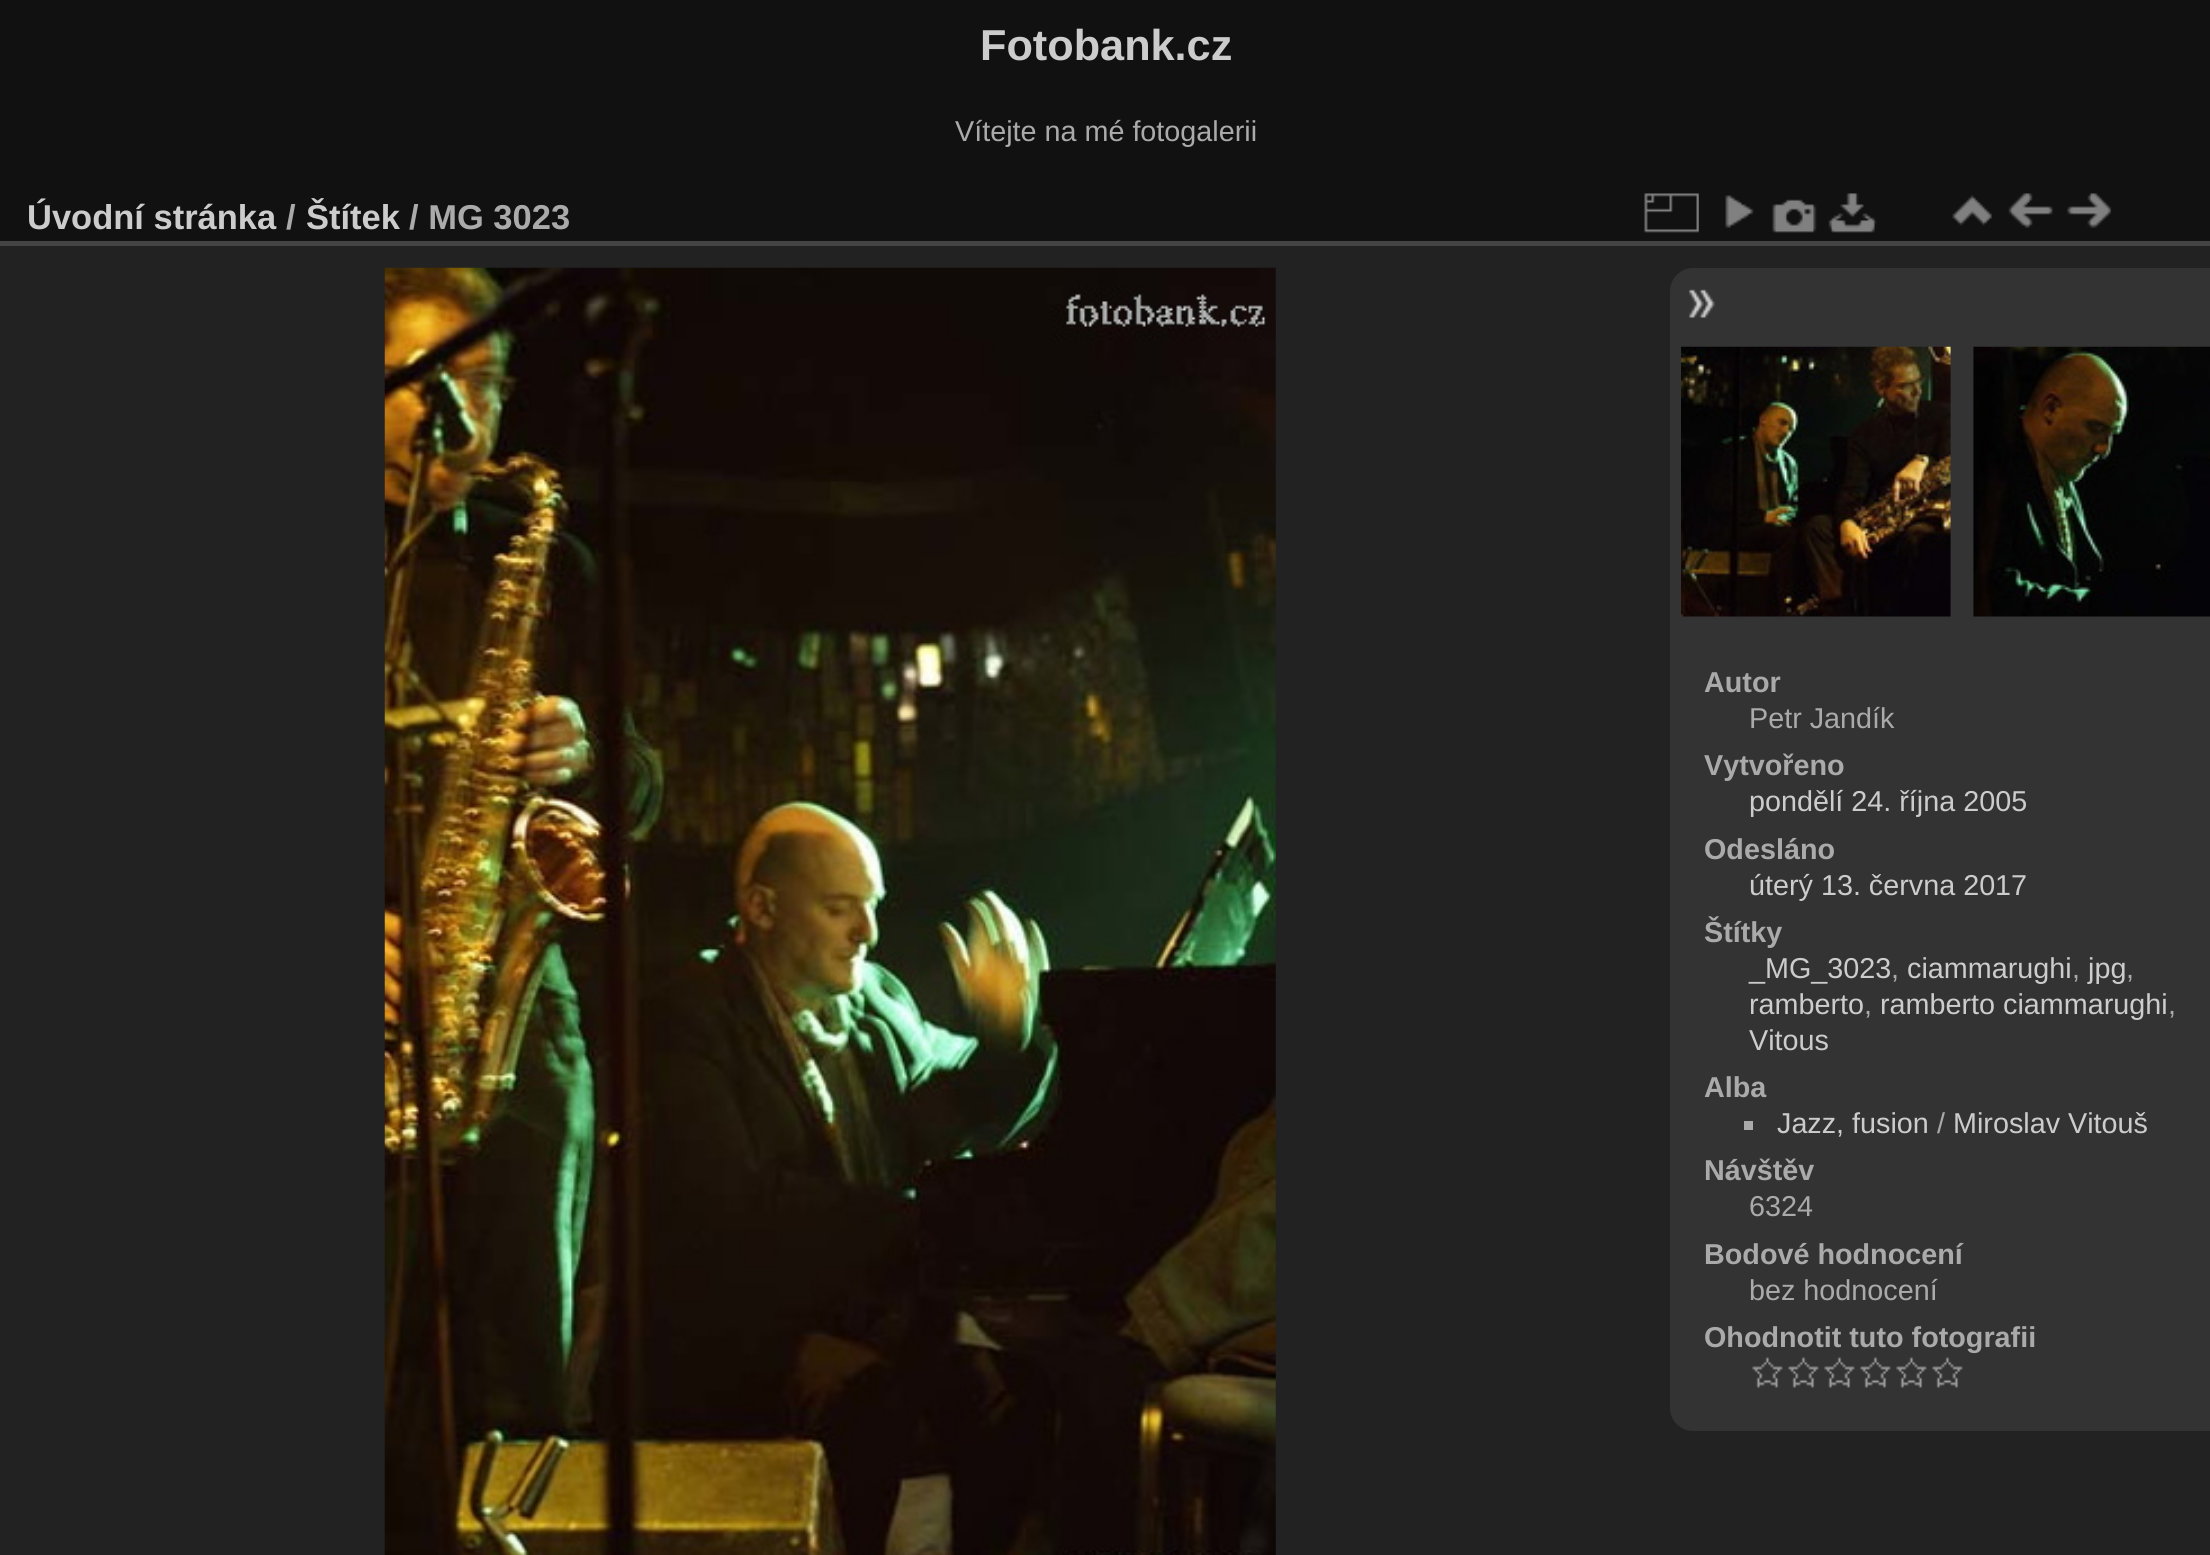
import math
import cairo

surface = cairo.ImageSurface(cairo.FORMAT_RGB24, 2210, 1555)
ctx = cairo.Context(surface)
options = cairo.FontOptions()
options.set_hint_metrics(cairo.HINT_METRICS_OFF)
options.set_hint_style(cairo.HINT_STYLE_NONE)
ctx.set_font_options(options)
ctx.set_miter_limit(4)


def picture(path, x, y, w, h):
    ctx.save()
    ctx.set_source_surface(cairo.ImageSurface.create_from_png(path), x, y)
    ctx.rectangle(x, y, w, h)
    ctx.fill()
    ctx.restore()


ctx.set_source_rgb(0.067, 0.067, 0.067)
ctx.paint()
ctx.select_font_face("Liberation Sans", cairo.FONT_SLANT_NORMAL, cairo.FONT_WEIGHT_BOLD)
ctx.set_font_size(43.25)
ctx.set_source_rgb(0.8, 0.8, 0.8)
ctx.move_to(980, 60)
ctx.show_text("Fotobank.cz")
ctx.select_font_face("Liberation Sans")
ctx.set_font_size(28.75)
ctx.set_source_rgb(0.667, 0.667, 0.667)
ctx.move_to(955, 141)
ctx.show_text("Vítejte na mé fotogalerii")
ctx.set_source_rgb(0.133, 0.133, 0.133)
ctx.rectangle(0, 246, 2210, 1309)
ctx.fill()
ctx.set_source_rgb(0.267, 0.267, 0.267)
ctx.rectangle(0, 241, 2210, 5)
ctx.fill()
ctx.select_font_face("Liberation Sans", cairo.FONT_SLANT_NORMAL, cairo.FONT_WEIGHT_BOLD)
ctx.set_font_size(34.5)
ctx.set_source_rgb(0.8, 0.8, 0.8)
ctx.move_to(27, 229)
ctx.show_text("Úvodní stránka")
ctx.set_source_rgb(0.667, 0.667, 0.667)
ctx.move_to(286, 229)
ctx.show_text("/")
ctx.set_source_rgb(0.8, 0.8, 0.8)
ctx.move_to(306, 229)
ctx.show_text("Štítek")
ctx.set_source_rgb(0.667, 0.667, 0.667)
ctx.move_to(409, 229)
ctx.show_text("/ MG 3023")
picture("img1.png", 1644, 193, 55, 40)
picture("img2.png", 1725, 195, 29, 33)
picture("img3.png", 1772, 199, 45, 34)
picture("img4.png", 1828, 193, 49, 40)
picture("img5.png", 1952, 195, 40, 31)
picture("img6.png", 2008, 193, 45, 35)
picture("img7.png", 2067, 193, 45, 35)
picture("img8.png", 384, 267, 892, 1288)
ctx.set_source_rgb(0.2, 0.2, 0.2)
ctx.new_path()
ctx.move_to(1693, 268)
ctx.line_to(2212, 268)
ctx.line_to(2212, 1431)
ctx.line_to(1693, 1431)
ctx.curve_to(1680.5, 1431, 1670, 1420.5, 1670, 1408)
ctx.line_to(1670, 291)
ctx.curve_to(1670, 278.5, 1680.5, 268, 1693, 268)
ctx.close_path()
ctx.fill()
picture("img9.png", 1688, 289, 27, 29)
picture("img10.png", 1681, 346, 270, 271)
picture("img11.png", 1973, 346, 237, 271)
ctx.set_font_size(28.75)
ctx.set_source_rgb(0.667, 0.667, 0.667)
ctx.move_to(1704, 692)
ctx.show_text("Autor")
ctx.select_font_face("Liberation Sans")
ctx.move_to(1749, 728)
ctx.show_text("Petr Jandík")
ctx.select_font_face("Liberation Sans", cairo.FONT_SLANT_NORMAL, cairo.FONT_WEIGHT_BOLD)
ctx.move_to(1704, 775)
ctx.show_text("Vytvořeno")
ctx.select_font_face("Liberation Sans")
ctx.set_source_rgb(0.8, 0.8, 0.8)
ctx.move_to(1749, 811)
ctx.show_text("pondělí 24. října 2005")
ctx.select_font_face("Liberation Sans", cairo.FONT_SLANT_NORMAL, cairo.FONT_WEIGHT_BOLD)
ctx.set_source_rgb(0.667, 0.667, 0.667)
ctx.move_to(1704, 859)
ctx.show_text("Odesláno")
ctx.select_font_face("Liberation Sans")
ctx.set_source_rgb(0.8, 0.8, 0.8)
ctx.move_to(1749, 895)
ctx.show_text("úterý 13. června 2017")
ctx.select_font_face("Liberation Sans", cairo.FONT_SLANT_NORMAL, cairo.FONT_WEIGHT_BOLD)
ctx.set_source_rgb(0.667, 0.667, 0.667)
ctx.move_to(1704, 942)
ctx.show_text("Štítky")
ctx.select_font_face("Liberation Sans")
ctx.set_source_rgb(0.8, 0.8, 0.8)
ctx.move_to(1749, 978)
ctx.show_text("_MG_3023")
ctx.set_source_rgb(0.667, 0.667, 0.667)
ctx.move_to(1891, 978)
ctx.show_text(",")
ctx.set_source_rgb(0.8, 0.8, 0.8)
ctx.move_to(1907, 978)
ctx.show_text("ciammarughi")
ctx.set_source_rgb(0.667, 0.667, 0.667)
ctx.move_to(2072, 978)
ctx.show_text(",")
ctx.set_source_rgb(0.8, 0.8, 0.8)
ctx.move_to(2088, 978)
ctx.show_text("jpg")
ctx.set_source_rgb(0.667, 0.667, 0.667)
ctx.move_to(2126, 978)
ctx.show_text(",")
ctx.set_source_rgb(0.8, 0.8, 0.8)
ctx.move_to(1749, 1014)
ctx.show_text("ramberto")
ctx.set_source_rgb(0.667, 0.667, 0.667)
ctx.move_to(1864, 1014)
ctx.show_text(",")
ctx.set_source_rgb(0.8, 0.8, 0.8)
ctx.move_to(1880, 1014)
ctx.show_text("ramberto ciammarughi")
ctx.set_source_rgb(0.667, 0.667, 0.667)
ctx.move_to(2168, 1014)
ctx.show_text(",")
ctx.set_source_rgb(0.8, 0.8, 0.8)
ctx.move_to(1749, 1050)
ctx.show_text("Vitous")
ctx.select_font_face("Liberation Sans", cairo.FONT_SLANT_NORMAL, cairo.FONT_WEIGHT_BOLD)
ctx.set_source_rgb(0.667, 0.667, 0.667)
ctx.move_to(1704, 1097)
ctx.show_text("Alba")
ctx.rectangle(1744, 1121, 9, 9)
ctx.fill()
ctx.select_font_face("Liberation Sans")
ctx.set_source_rgb(0.8, 0.8, 0.8)
ctx.move_to(1777, 1133)
ctx.show_text("Jazz, fusion")
ctx.set_source_rgb(0.667, 0.667, 0.667)
ctx.move_to(1937, 1133)
ctx.show_text("/")
ctx.set_source_rgb(0.8, 0.8, 0.8)
ctx.move_to(1953, 1133)
ctx.show_text("Miroslav Vitouš")
ctx.select_font_face("Liberation Sans", cairo.FONT_SLANT_NORMAL, cairo.FONT_WEIGHT_BOLD)
ctx.set_source_rgb(0.667, 0.667, 0.667)
ctx.move_to(1704, 1180)
ctx.show_text("Návštěv")
ctx.select_font_face("Liberation Sans")
ctx.move_to(1749, 1216)
ctx.show_text("6324")
ctx.select_font_face("Liberation Sans", cairo.FONT_SLANT_NORMAL, cairo.FONT_WEIGHT_BOLD)
ctx.move_to(1704, 1264)
ctx.show_text("Bodové hodnocení")
ctx.select_font_face("Liberation Sans")
ctx.move_to(1749, 1300)
ctx.show_text("bez hodnocení")
ctx.select_font_face("Liberation Sans", cairo.FONT_SLANT_NORMAL, cairo.FONT_WEIGHT_BOLD)
ctx.move_to(1704, 1347)
ctx.show_text("Ohodnotit tuto fotografii")
picture("img12.png", 1752, 1357, 31, 31)
picture("img13.png", 1788, 1357, 31, 31)
picture("img13.png", 1824, 1357, 31, 31)
picture("img13.png", 1860, 1357, 31, 31)
picture("img13.png", 1896, 1357, 31, 31)
picture("img12.png", 1932, 1357, 31, 31)
surface.write_to_png("page.png")
